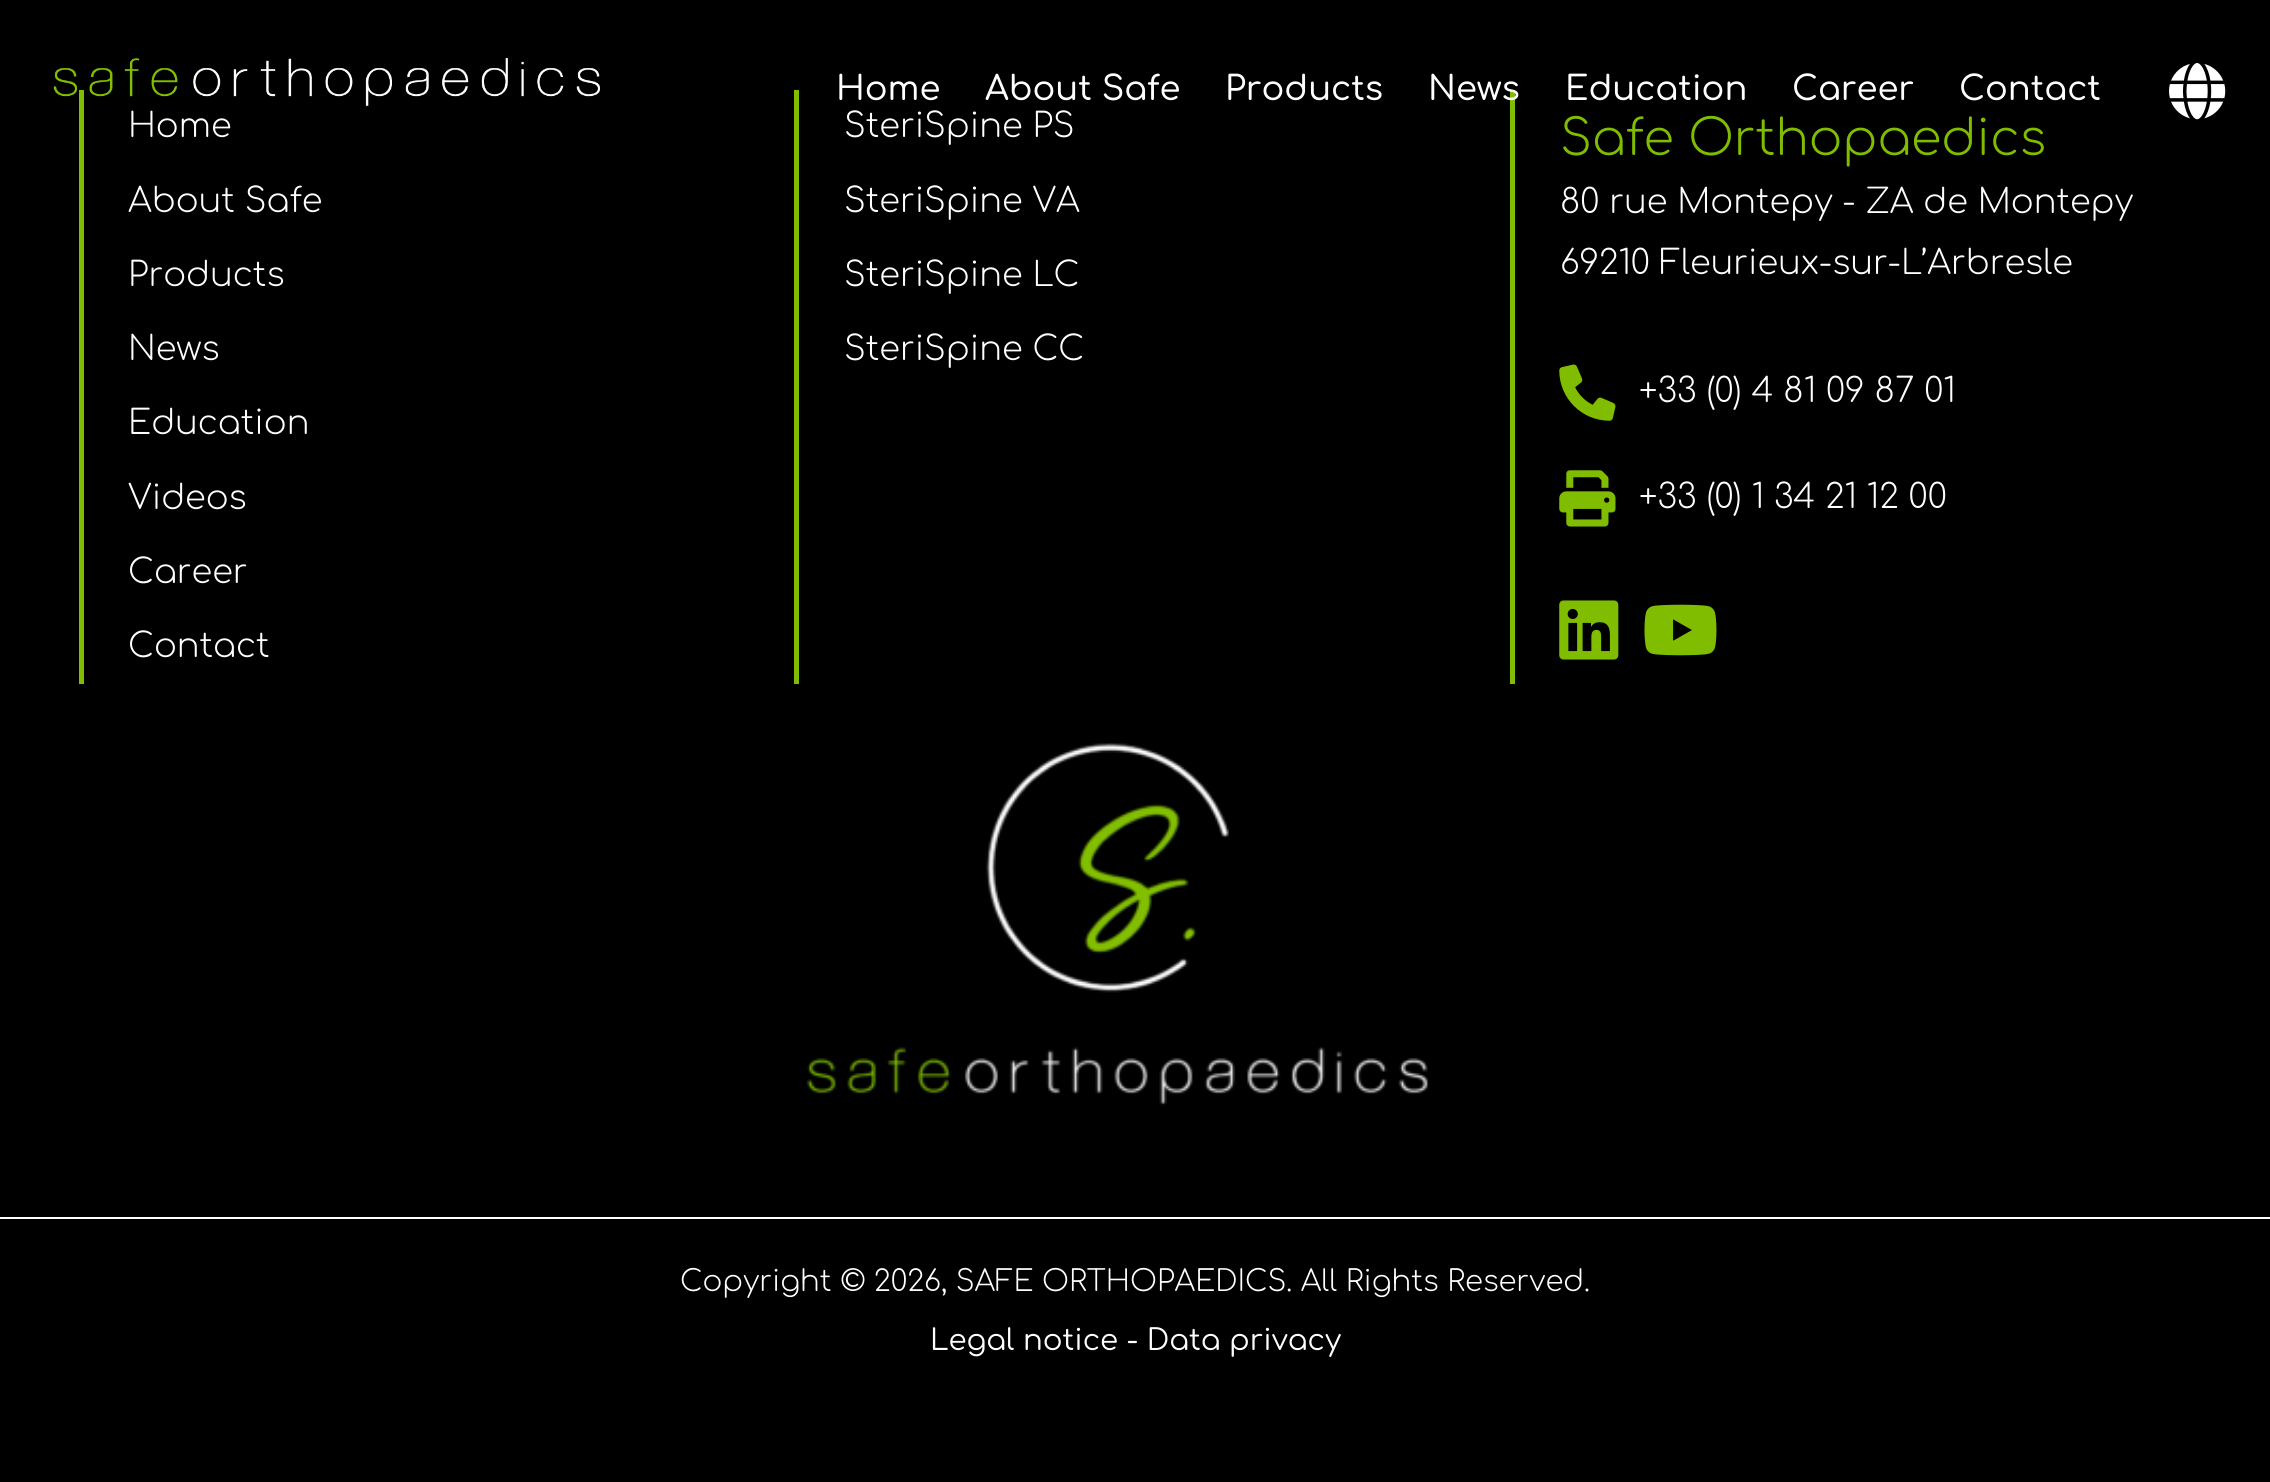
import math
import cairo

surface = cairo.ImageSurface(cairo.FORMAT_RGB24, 2270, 1482)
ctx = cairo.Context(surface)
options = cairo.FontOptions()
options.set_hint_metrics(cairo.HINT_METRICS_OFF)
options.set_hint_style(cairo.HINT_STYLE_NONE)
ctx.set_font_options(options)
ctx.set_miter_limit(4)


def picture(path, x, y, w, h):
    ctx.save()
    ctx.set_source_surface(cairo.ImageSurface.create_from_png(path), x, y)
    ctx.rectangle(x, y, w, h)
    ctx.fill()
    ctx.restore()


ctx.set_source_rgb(0, 0, 0)
ctx.paint()
ctx.set_source_rgb(0.502, 0.741, 0.004)
ctx.rectangle(79, 90, 5, 594)
ctx.fill()
picture("img1.png", 53, 58, 547, 49)
ctx.select_font_face("Comfortaa Medium")
ctx.set_font_size(33.75)
ctx.set_source_rgb(1, 1, 1)
ctx.move_to(836, 100)
ctx.show_text("Home")
ctx.move_to(985, 100)
ctx.show_text("About Safe")
ctx.move_to(1225, 100)
ctx.show_text("Products")
ctx.set_source_rgb(0.502, 0.741, 0.004)
ctx.rectangle(1510, 90, 5, 594)
ctx.fill()
ctx.set_source_rgb(1, 1, 1)
ctx.move_to(1428, 100)
ctx.show_text("News")
ctx.move_to(1565, 100)
ctx.show_text("Education")
ctx.move_to(1792, 100)
ctx.show_text("Career")
ctx.move_to(1959, 100)
ctx.show_text("Contact")
picture("img2.png", 2169, 63, 57, 57)
ctx.select_font_face("Comfortaa Light")
ctx.move_to(128, 137)
ctx.show_text("Home")
ctx.move_to(128, 212)
ctx.show_text("About Safe")
ctx.move_to(128, 286)
ctx.show_text("Products")
ctx.move_to(128, 360)
ctx.show_text("News")
ctx.move_to(128, 434)
ctx.show_text("Education")
ctx.move_to(128, 509)
ctx.show_text("Videos")
ctx.move_to(128, 583)
ctx.show_text("Career")
ctx.move_to(128, 657)
ctx.show_text("Contact")
ctx.set_source_rgb(0.502, 0.741, 0.004)
ctx.rectangle(794, 90, 5, 594)
ctx.fill()
ctx.set_source_rgb(1, 1, 1)
ctx.move_to(844, 137)
ctx.show_text("SteriSpine PS")
ctx.move_to(844, 212)
ctx.show_text("SteriSpine VA")
ctx.move_to(844, 286)
ctx.show_text("SteriSpine LC")
ctx.move_to(844, 360)
ctx.show_text("SteriSpine CC")
ctx.set_font_size(49.5)
ctx.set_source_rgb(0.502, 0.741, 0.004)
ctx.move_to(1560, 155)
ctx.show_text("Safe Orthopaedics")
ctx.set_font_size(33.75)
ctx.set_source_rgb(1, 1, 1)
ctx.move_to(1560, 213)
ctx.show_text("80 rue Montepy - ZA de Montepy")
ctx.move_to(1560, 274)
ctx.show_text("69210 Fleurieux-sur-L’Arbresle")
picture("img3.png", 1559, 364, 57, 57)
ctx.move_to(1639, 402)
ctx.show_text("+33 (0) 4 81 09 87 01")
picture("img4.png", 1559, 470, 57, 57)
ctx.move_to(1639, 508)
ctx.show_text("+33 (0) 1 34 21 12 00")
picture("img5.png", 1559, 600, 60, 60)
picture("img6.png", 1644, 604, 73, 52)
picture("img7.png", 806, 743, 623, 363)
ctx.rectangle(0, 1217, 2270, 2)
ctx.fill()
ctx.set_font_size(29.25)
ctx.move_to(680, 1291)
ctx.show_text("Copyright © 2026, SAFE ORTHOPAEDICS. All Rights Reserved.")
ctx.select_font_face("Comfortaa")
ctx.move_to(930, 1350)
ctx.show_text("Legal notice - Data privacy")
surface.write_to_png("page.png")
